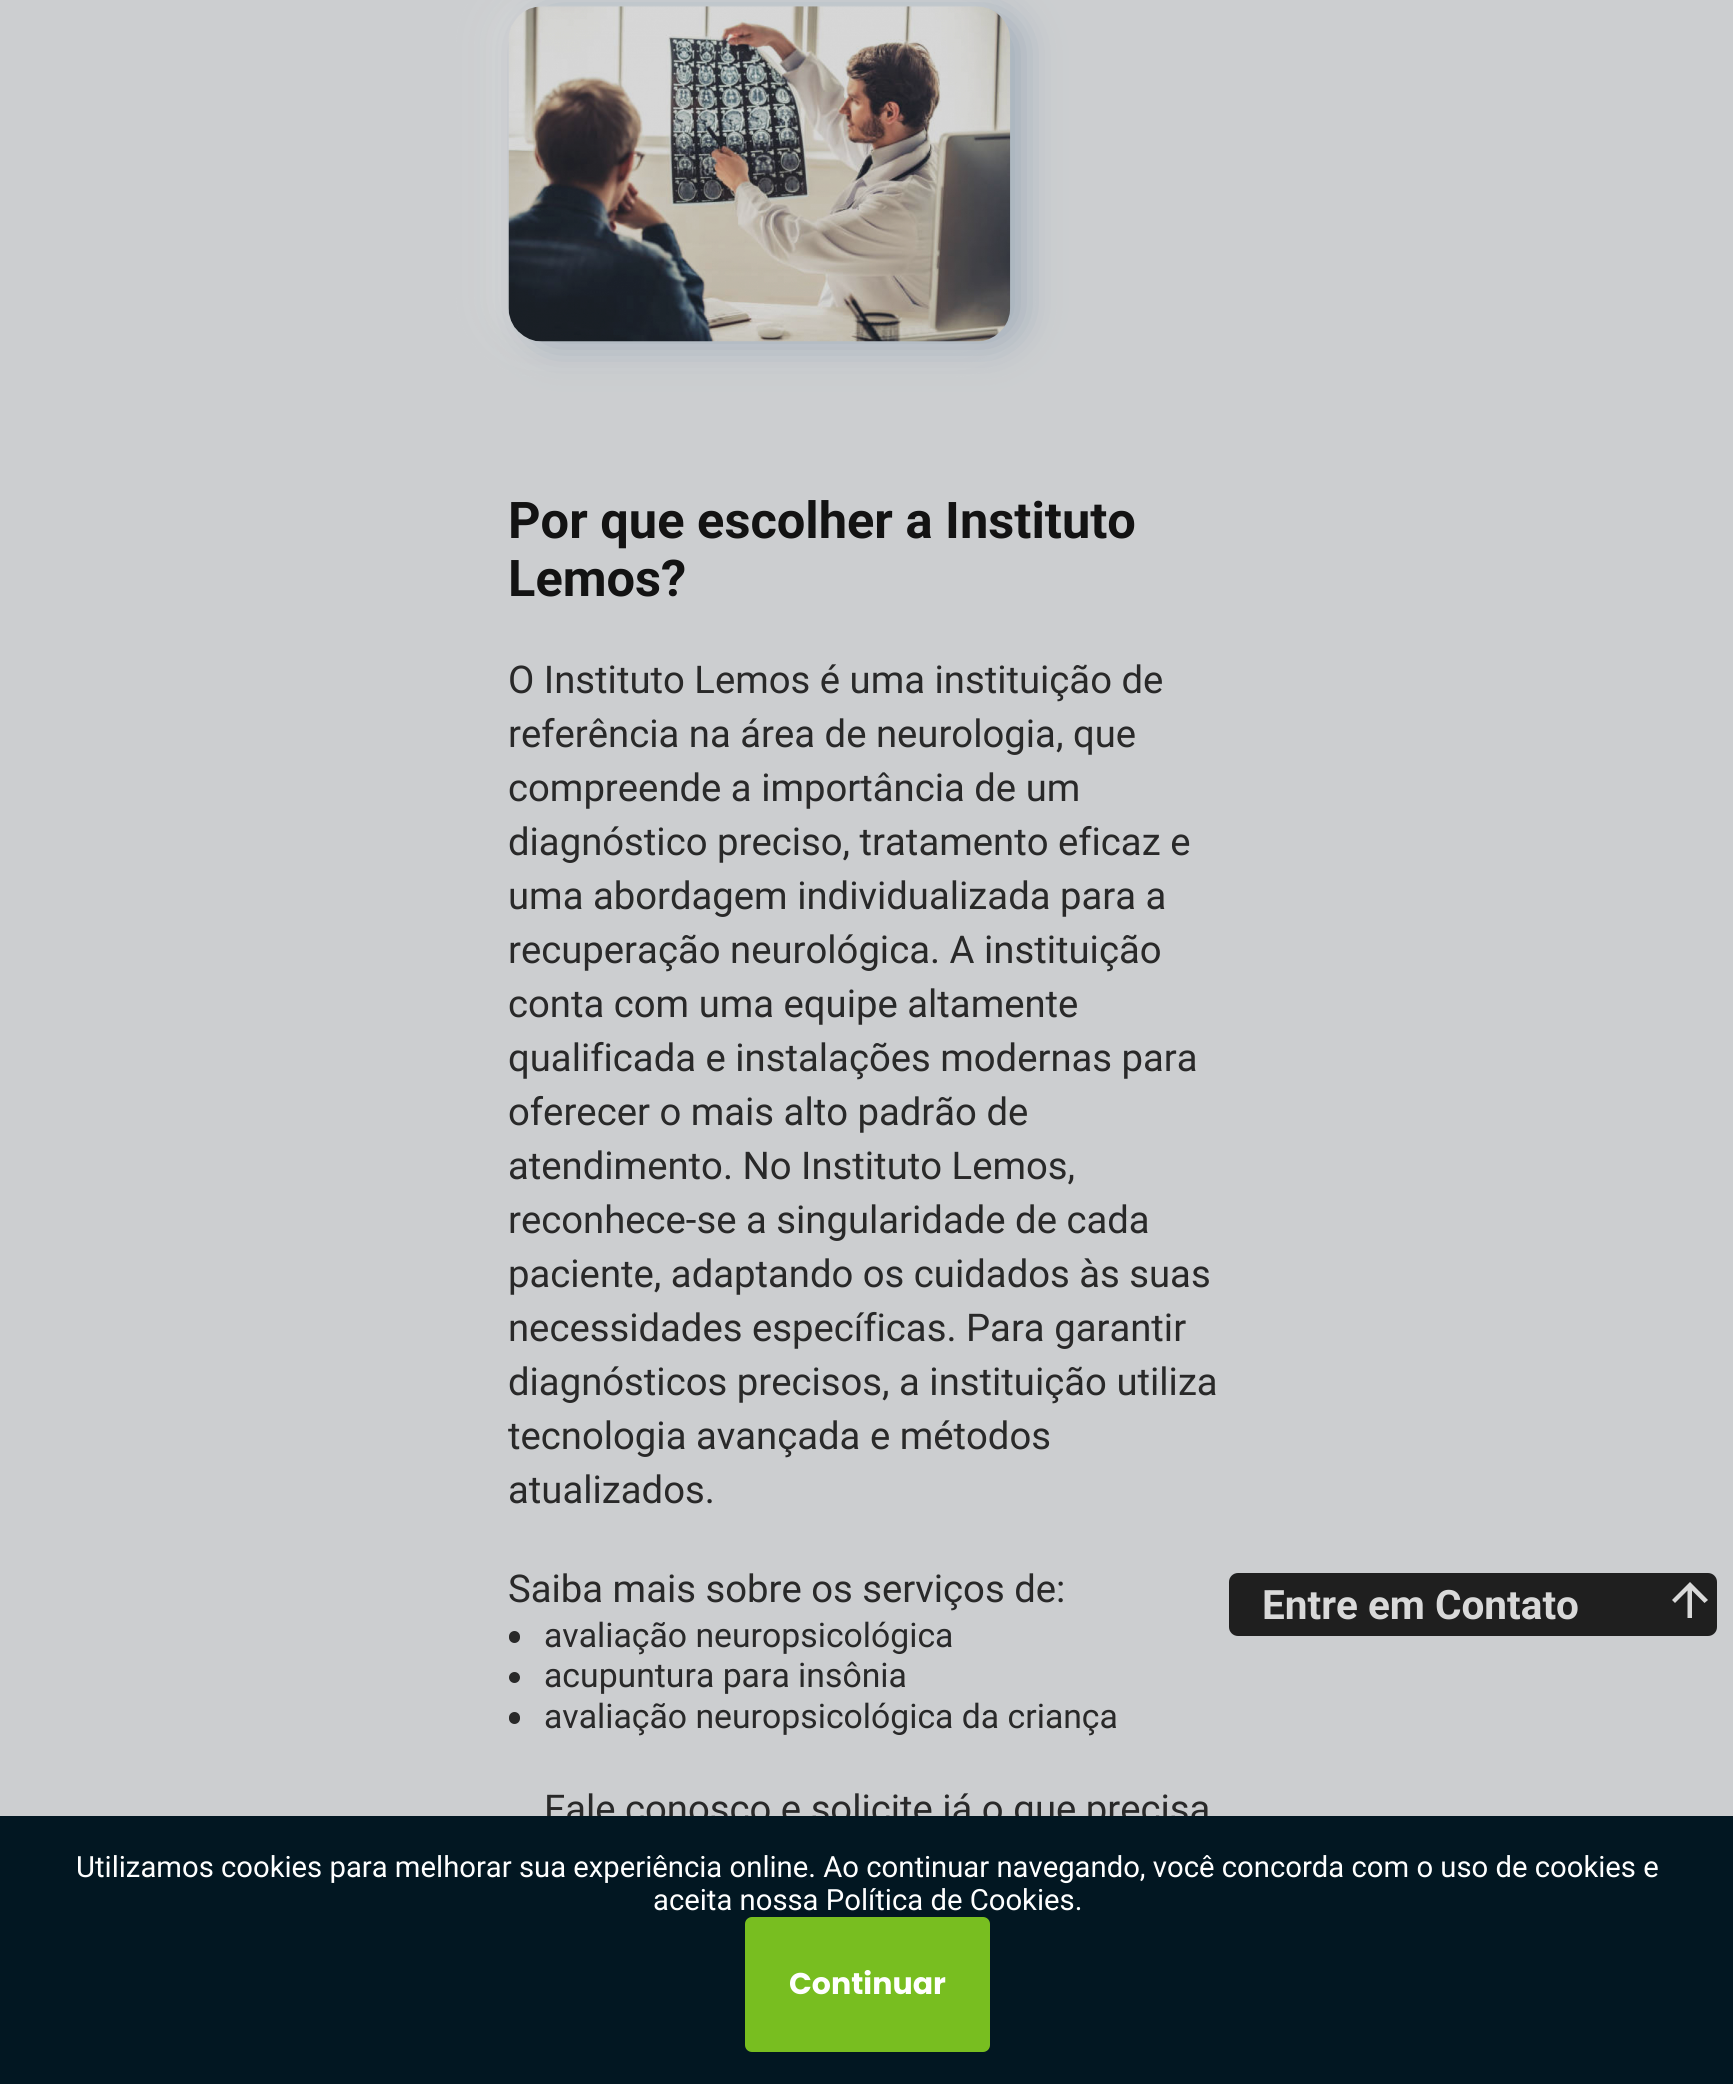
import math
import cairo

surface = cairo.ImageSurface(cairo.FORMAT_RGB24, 1733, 2084)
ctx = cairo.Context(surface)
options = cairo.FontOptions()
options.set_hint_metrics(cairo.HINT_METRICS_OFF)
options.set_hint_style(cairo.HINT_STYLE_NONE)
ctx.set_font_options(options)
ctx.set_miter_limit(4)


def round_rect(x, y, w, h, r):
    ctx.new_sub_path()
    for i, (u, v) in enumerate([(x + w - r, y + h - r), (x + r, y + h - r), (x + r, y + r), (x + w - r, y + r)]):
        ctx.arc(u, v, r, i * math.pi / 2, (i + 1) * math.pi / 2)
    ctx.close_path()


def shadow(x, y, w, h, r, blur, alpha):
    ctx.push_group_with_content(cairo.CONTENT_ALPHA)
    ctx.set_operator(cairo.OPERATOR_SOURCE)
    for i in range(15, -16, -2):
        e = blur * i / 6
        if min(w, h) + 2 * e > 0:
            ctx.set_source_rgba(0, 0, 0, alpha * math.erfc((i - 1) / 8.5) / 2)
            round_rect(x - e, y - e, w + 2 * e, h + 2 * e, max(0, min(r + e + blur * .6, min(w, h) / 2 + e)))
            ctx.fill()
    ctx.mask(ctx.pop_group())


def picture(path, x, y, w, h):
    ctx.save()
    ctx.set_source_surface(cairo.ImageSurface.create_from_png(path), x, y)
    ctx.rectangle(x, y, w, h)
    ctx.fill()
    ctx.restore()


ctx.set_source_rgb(0.8, 0.808, 0.816)
ctx.paint()
ctx.set_source_rgb(0.851, 0.851, 0.851)
shadow(495, 2, 502, 336, 34, 18, 0.8)
ctx.set_source_rgb(0.455, 0.549, 0.635)
shadow(522, 11, 502, 336, 34, 18, 0.48)
picture("img1.png", 508, 6, 503, 336)
ctx.select_font_face("Roboto", cairo.FONT_SLANT_NORMAL, cairo.FONT_WEIGHT_BOLD)
ctx.set_font_size(50.6)
ctx.set_source_rgb(0.078, 0.078, 0.078)
ctx.move_to(508, 538)
ctx.show_text("Por que escolher a Instituto")
ctx.move_to(508, 596)
ctx.show_text("Lemos?")
ctx.select_font_face("Roboto")
ctx.set_font_size(38.25)
ctx.set_source_rgb(0.161, 0.161, 0.161)
ctx.move_to(508, 693)
ctx.show_text("O Instituto Lemos é uma instituição de")
ctx.move_to(508, 747)
ctx.show_text("referência na área de neurologia, que")
ctx.move_to(508, 801)
ctx.show_text("compreende a importância de um")
ctx.move_to(508, 855)
ctx.show_text("diagnóstico preciso, tratamento eficaz e")
ctx.move_to(508, 909)
ctx.show_text("uma abordagem individualizada para a")
ctx.move_to(508, 963)
ctx.show_text("recuperação neurológica. A instituição")
ctx.move_to(508, 1017)
ctx.show_text("conta com uma equipe altamente")
ctx.move_to(508, 1071)
ctx.show_text("qualificada e instalações modernas para")
ctx.move_to(508, 1125)
ctx.show_text("oferecer o mais alto padrão de")
ctx.move_to(508, 1179)
ctx.show_text("atendimento. No Instituto Lemos,")
ctx.move_to(508, 1233)
ctx.show_text("reconhece-se a singularidade de cada")
ctx.move_to(508, 1287)
ctx.show_text("paciente, adaptando os cuidados às suas")
ctx.move_to(508, 1341)
ctx.show_text("necessidades específicas. Para garantir")
ctx.move_to(508, 1395)
ctx.show_text("diagnósticos precisos, a instituição utiliza")
ctx.move_to(508, 1449)
ctx.show_text("tecnologia avançada e métodos")
ctx.move_to(508, 1503)
ctx.show_text("atualizados.")
ctx.move_to(508, 1602)
ctx.show_text("Saiba mais sobre os serviços de:")
round_rect(509, 1631, 11, 12, 5.5)
ctx.fill()
ctx.set_font_size(33.75)
ctx.move_to(544, 1647)
ctx.show_text("avaliação neuropsicológica")
ctx.new_path()
ctx.arc(514.5, 1677.5, 5.5, 0, 2 * math.pi)
ctx.fill()
ctx.move_to(544, 1687)
ctx.show_text("acupuntura para insônia")
round_rect(509, 1712, 11, 12, 5.5)
ctx.fill()
ctx.move_to(544, 1728)
ctx.show_text("avaliação neuropsicológica da criança")
ctx.set_font_size(38.25)
ctx.move_to(544, 1822)
ctx.show_text("Fale conosco e solicite já o que precisa")
ctx.set_source_rgb(0.122, 0.122, 0.122)
round_rect(1229, 1573, 488, 63, 9)
ctx.fill()
ctx.select_font_face("Roboto", cairo.FONT_SLANT_NORMAL, cairo.FONT_WEIGHT_BOLD)
ctx.set_font_size(40.5)
ctx.set_source_rgb(0.851, 0.851, 0.851)
ctx.move_to(1262, 1619)
ctx.show_text("Entre em Contato")
ctx.new_path()
ctx.move_to(1672, 1600)
ctx.line_to(1675, 1603)
ctx.line_to(1687.5, 1590.5)
ctx.line_to(1687.5, 1618)
ctx.line_to(1692, 1618)
ctx.line_to(1692, 1590.5)
ctx.line_to(1704.5, 1603)
ctx.line_to(1708, 1600)
ctx.line_to(1690, 1582)
ctx.close_path()
ctx.fill()
ctx.set_source_rgb(0.008, 0.09, 0.133)
ctx.rectangle(0, 1816, 1733, 268)
ctx.fill()
ctx.select_font_face("Roboto")
ctx.set_font_size(29.25)
ctx.set_source_rgb(1, 1, 1)
ctx.move_to(76, 1877)
ctx.show_text("Utilizamos cookies para melhorar sua experiência online. Ao continuar navegando, você concorda com o uso de cookies e")
ctx.move_to(653, 1910)
ctx.show_text("aceita nossa Política de Cookies.")
ctx.set_source_rgb(0.471, 0.745, 0.125)
round_rect(745, 1917, 245, 135, 7)
ctx.fill()
ctx.select_font_face("Poppins", cairo.FONT_SLANT_NORMAL, cairo.FONT_WEIGHT_BOLD)
ctx.set_font_size(30)
ctx.set_source_rgb(1, 1, 1)
ctx.move_to(789, 1994)
ctx.show_text("Continuar")
surface.write_to_png("page.png")
